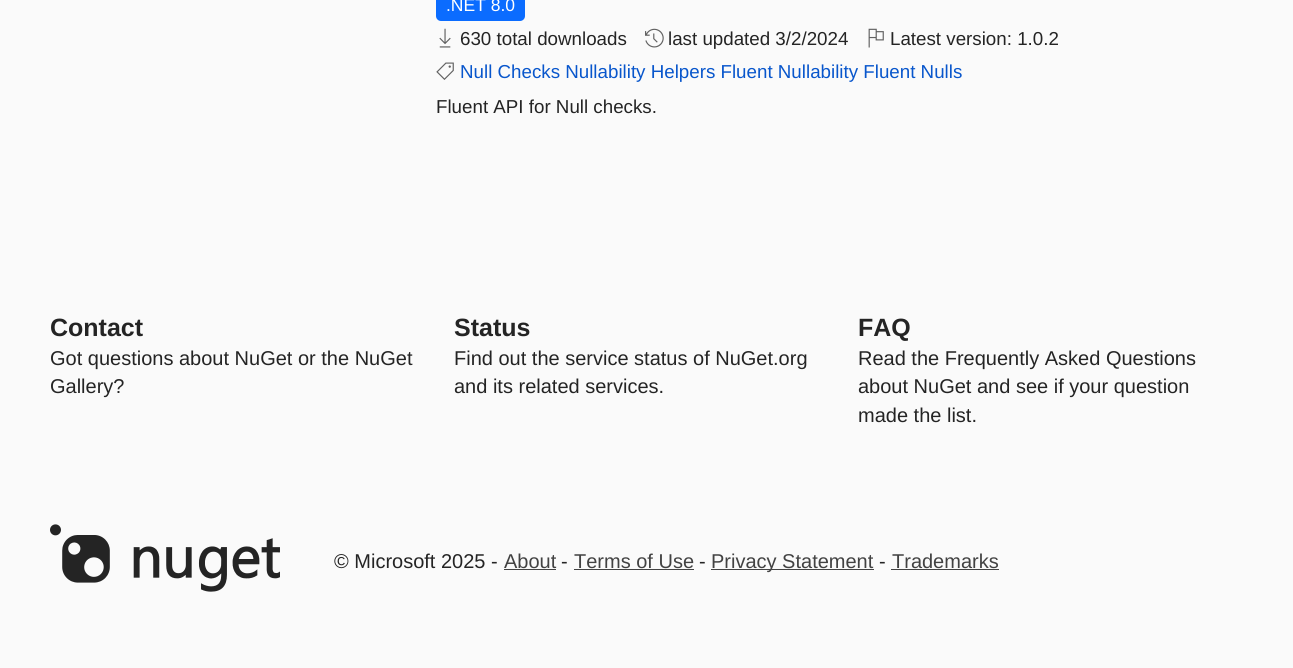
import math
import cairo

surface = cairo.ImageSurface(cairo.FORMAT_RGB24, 1293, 668)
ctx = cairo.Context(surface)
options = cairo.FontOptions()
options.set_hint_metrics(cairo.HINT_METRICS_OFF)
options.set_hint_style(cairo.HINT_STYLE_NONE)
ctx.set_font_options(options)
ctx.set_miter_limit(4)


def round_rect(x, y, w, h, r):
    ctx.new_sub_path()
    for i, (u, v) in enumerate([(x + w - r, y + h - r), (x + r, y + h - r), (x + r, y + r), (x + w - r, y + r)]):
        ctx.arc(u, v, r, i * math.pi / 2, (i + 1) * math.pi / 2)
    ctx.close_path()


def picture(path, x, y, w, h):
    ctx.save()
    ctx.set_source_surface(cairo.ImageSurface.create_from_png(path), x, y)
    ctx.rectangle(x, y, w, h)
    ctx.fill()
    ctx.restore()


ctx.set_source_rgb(0.98, 0.98, 0.98)
ctx.paint()
ctx.set_source_rgb(0.043, 0.424, 1)
round_rect(436, -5, 89, 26, 5)
ctx.fill()
ctx.select_font_face("Liberation Sans")
ctx.set_font_size(17.5)
ctx.set_source_rgb(1, 1, 1)
ctx.move_to(446, 11)
ctx.show_text(".NET 8.0")
picture("img1.png", 439, 28, 12, 20)
ctx.set_font_size(18.75)
ctx.set_source_rgb(0.141, 0.141, 0.141)
ctx.move_to(460, 45)
ctx.show_text("630 total downloads")
picture("img2.png", 645, 28, 19, 20)
ctx.move_to(668, 45)
ctx.show_text("last updated 3/2/2024")
picture("img3.png", 868, 28, 16, 20)
ctx.move_to(890, 45)
ctx.show_text("Latest version: 1.0.2")
picture("img4.png", 436, 62, 18, 18)
ctx.set_source_rgb(0.035, 0.337, 0.8)
ctx.move_to(460, 78)
ctx.show_text("Null Checks Nullability Helpers Fluent Nullability Fluent Nulls")
ctx.set_source_rgb(0.141, 0.141, 0.141)
ctx.move_to(436, 113)
ctx.show_text("Fluent API for Null checks.")
ctx.select_font_face("Liberation Sans", cairo.FONT_SLANT_NORMAL, cairo.FONT_WEIGHT_BOLD)
ctx.set_font_size(25)
ctx.move_to(50, 336)
ctx.show_text("Contact")
ctx.select_font_face("Liberation Sans")
ctx.set_font_size(20)
ctx.move_to(50, 365)
ctx.show_text("Got questions about NuGet or the NuGet")
ctx.move_to(50, 393)
ctx.show_text("Gallery?")
ctx.select_font_face("Liberation Sans", cairo.FONT_SLANT_NORMAL, cairo.FONT_WEIGHT_BOLD)
ctx.set_font_size(25)
ctx.move_to(454, 336)
ctx.show_text("Status")
ctx.select_font_face("Liberation Sans")
ctx.set_font_size(20)
ctx.move_to(454, 365)
ctx.show_text("Find out the service status of NuGet.org")
ctx.move_to(454, 393)
ctx.show_text("and its related services.")
ctx.select_font_face("Liberation Sans", cairo.FONT_SLANT_NORMAL, cairo.FONT_WEIGHT_BOLD)
ctx.set_font_size(25)
ctx.move_to(858, 336)
ctx.show_text("FAQ")
ctx.select_font_face("Liberation Sans")
ctx.set_font_size(20)
ctx.move_to(858, 365)
ctx.show_text("Read the Frequently Asked Questions")
ctx.move_to(858, 393)
ctx.show_text("about NuGet and see if your question")
ctx.move_to(858, 422)
ctx.show_text("made the list.")
picture("img5.png", 50, 524, 230, 68)
ctx.move_to(334, 568)
ctx.show_text("© Microsoft 2025 -")
ctx.set_source_rgb(0.259, 0.259, 0.259)
ctx.move_to(504, 568)
ctx.show_text("About")
ctx.rectangle(504, 569, 52, 1)
ctx.fill()
ctx.set_source_rgb(0.141, 0.141, 0.141)
ctx.move_to(561, 568)
ctx.show_text("-")
ctx.set_source_rgb(0.259, 0.259, 0.259)
ctx.move_to(574, 568)
ctx.show_text("Terms of Use")
ctx.rectangle(574, 569, 120, 1)
ctx.fill()
ctx.set_source_rgb(0.141, 0.141, 0.141)
ctx.move_to(699, 568)
ctx.show_text("-")
ctx.set_source_rgb(0.259, 0.259, 0.259)
ctx.rectangle(711, 569, 163, 1)
ctx.fill()
ctx.move_to(711, 568)
ctx.show_text("Privacy Statement")
ctx.set_source_rgb(0.141, 0.141, 0.141)
ctx.move_to(879, 568)
ctx.show_text("-")
ctx.set_source_rgb(0.259, 0.259, 0.259)
ctx.move_to(892, 568)
ctx.show_text("Trademarks")
ctx.rectangle(891, 569, 108, 1)
ctx.fill()
surface.write_to_png("page.png")
